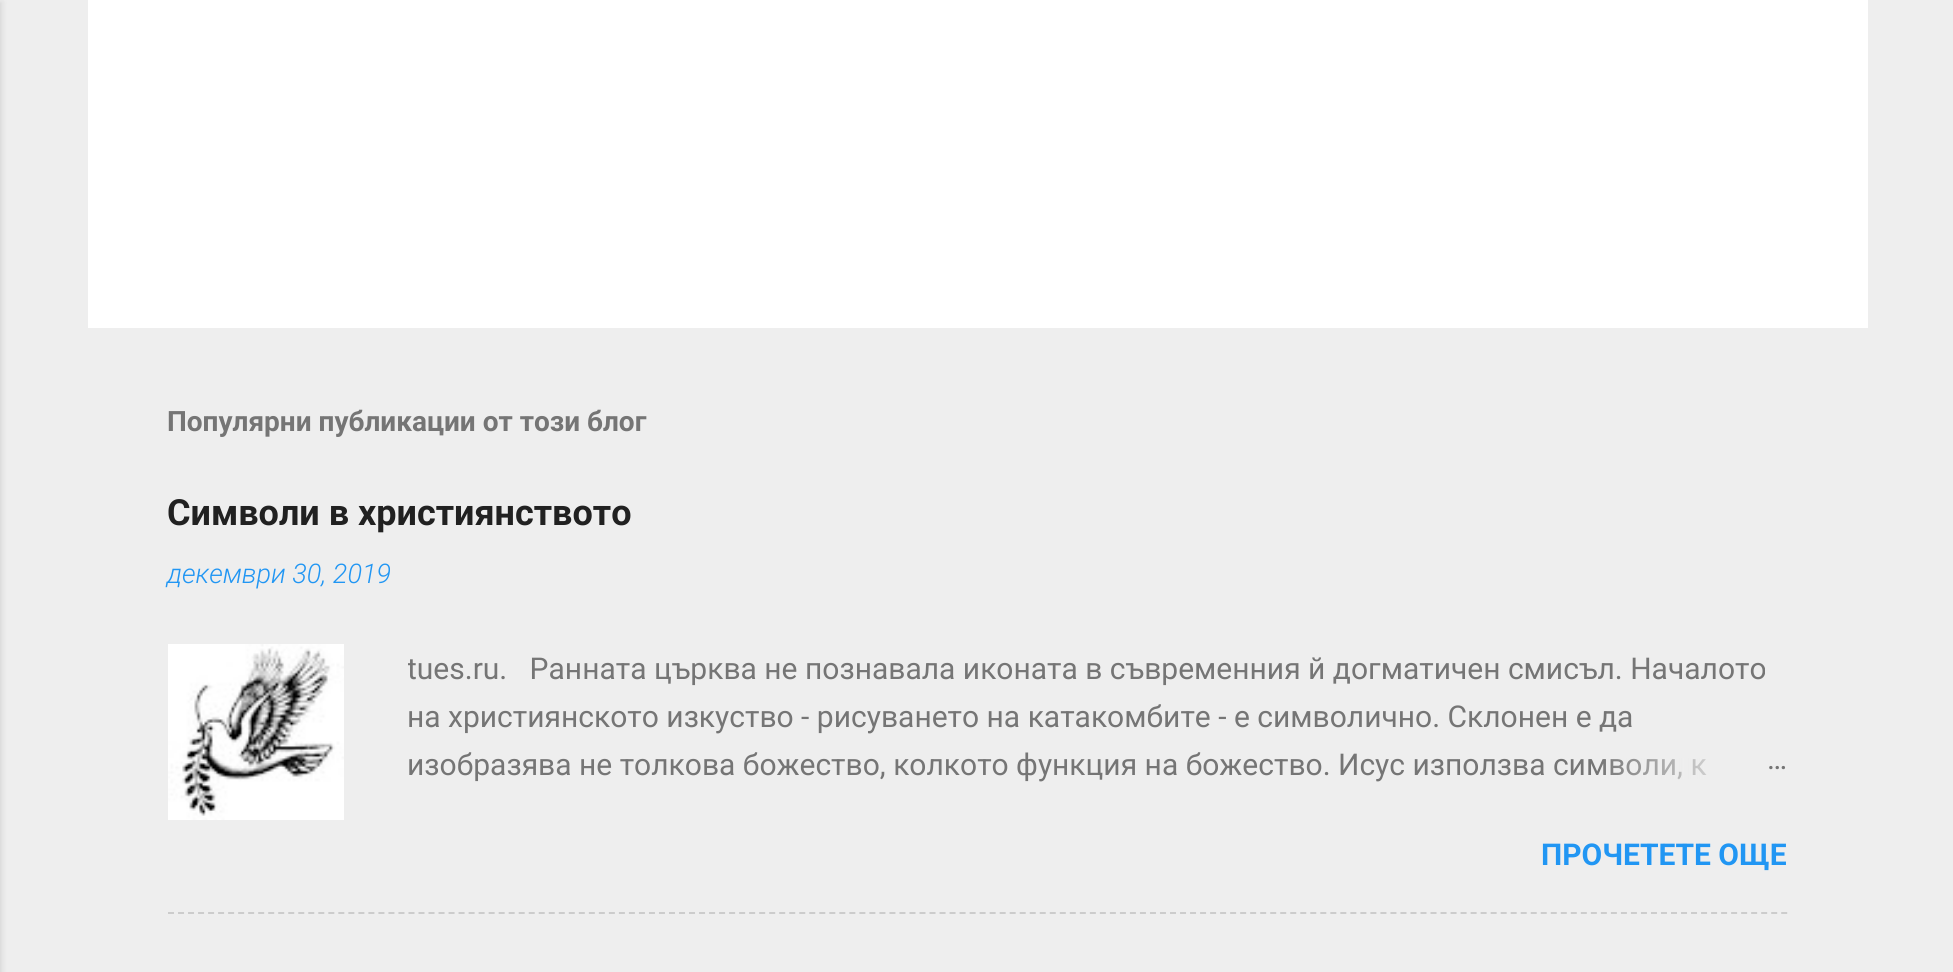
import math
import cairo

surface = cairo.ImageSurface(cairo.FORMAT_RGB24, 1953, 972)
ctx = cairo.Context(surface)
options = cairo.FontOptions()
options.set_hint_metrics(cairo.HINT_METRICS_OFF)
options.set_hint_style(cairo.HINT_STYLE_NONE)
ctx.set_font_options(options)
ctx.set_miter_limit(4)


def round_rect(x, y, w, h, r):
    ctx.new_sub_path()
    for i, (u, v) in enumerate([(x + w - r, y + h - r), (x + r, y + h - r), (x + r, y + r), (x + w - r, y + r)]):
        ctx.arc(u, v, r, i * math.pi / 2, (i + 1) * math.pi / 2)
    ctx.close_path()


def shadow(x, y, w, h, r, blur, alpha):
    ctx.push_group_with_content(cairo.CONTENT_ALPHA)
    ctx.set_operator(cairo.OPERATOR_SOURCE)
    for i in range(15, -16, -2):
        e = blur * i / 6
        if min(w, h) + 2 * e > 0:
            ctx.set_source_rgba(0, 0, 0, alpha * math.erfc((i - 1) / 8.5) / 2)
            round_rect(x - e, y - e, w + 2 * e, h + 2 * e, max(0, min(r + e + blur * .6, min(w, h) / 2 + e)))
            ctx.fill()
    ctx.mask(ctx.pop_group())


def picture(path, x, y, w, h):
    ctx.save()
    ctx.set_source_surface(cairo.ImageSurface.create_from_png(path), x, y)
    ctx.rectangle(x, y, w, h)
    ctx.fill()
    ctx.restore()


ctx.set_source_rgb(0.933, 0.933, 0.933)
ctx.paint()
ctx.set_source_rgb(0, 0, 0)
shadow(-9, 2, 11, 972, 0, 3, 0.1)
ctx.set_source_rgb(1, 1, 1)
ctx.rectangle(88, 0, 1780, 328)
ctx.fill()
ctx.select_font_face("Roboto", cairo.FONT_SLANT_NORMAL, cairo.FONT_WEIGHT_BOLD)
ctx.set_font_size(28)
ctx.set_source_rgb(0.459, 0.459, 0.459)
ctx.move_to(167, 431)
ctx.show_text("Популярни публикации от този блог")
ctx.set_font_size(36)
ctx.set_source_rgb(0.129, 0.129, 0.129)
ctx.move_to(167, 525)
ctx.show_text("Символи в християнството")
ctx.select_font_face("Roboto Light", cairo.FONT_SLANT_ITALIC)
ctx.set_font_size(27)
ctx.set_source_rgb(0.129, 0.588, 0.953)
ctx.move_to(167, 583)
ctx.show_text("декември 30, 2019")
picture("img1.png", 168, 644, 176, 176)
ctx.save()
ctx.rectangle(408, 644, 1380, 144)
ctx.clip()
ctx.select_font_face("Roboto")
ctx.set_font_size(30)
ctx.set_source_rgb(0.459, 0.459, 0.459)
ctx.move_to(407, 679)
ctx.show_text("tues.ru.   Ранната църква не познавала иконата в съвременния й догматичен смисъл. Началото")
ctx.restore()
ctx.select_font_face("Roboto")
ctx.set_font_size(30)
ctx.set_source_rgb(0.459, 0.459, 0.459)
ctx.move_to(407, 727)
ctx.show_text("на християнското изкуство - рисуването на катакомбите - е символично. Склонен е да")
ctx.move_to(407, 775)
ctx.show_text("изобразява не толкова божество, колкото функция на божество. Исус използва символи, к")
gradient = cairo.LinearGradient(1788, 764, 1596, 764)
gradient.add_color_stop_rgba(0, 0.933, 0.933, 0.933, 1)
gradient.add_color_stop_rgba(0.2, 0.933, 0.933, 0.933, 1)
gradient.add_color_stop_rgba(1, 0.933, 0.933, 0.933, 0)
ctx.set_source(gradient)
ctx.rectangle(1600, 758, 107, 21)
ctx.fill()
ctx.set_source_rgb(0.459, 0.459, 0.459)
ctx.move_to(1767, 769)
ctx.show_text("…")
ctx.select_font_face("Roboto", cairo.FONT_SLANT_NORMAL, cairo.FONT_WEIGHT_BOLD)
ctx.set_source_rgb(0.129, 0.588, 0.953)
ctx.move_to(1541, 865)
ctx.show_text("ПРОЧЕТЕТЕ ОЩЕ")
ctx.new_path()
ctx.move_to(168, 913)
ctx.line_to(1788, 913)
ctx.set_source_rgb(0.8, 0.8, 0.8)
ctx.set_dash([6, 4.02])
ctx.stroke()
surface.write_to_png("page.png")
